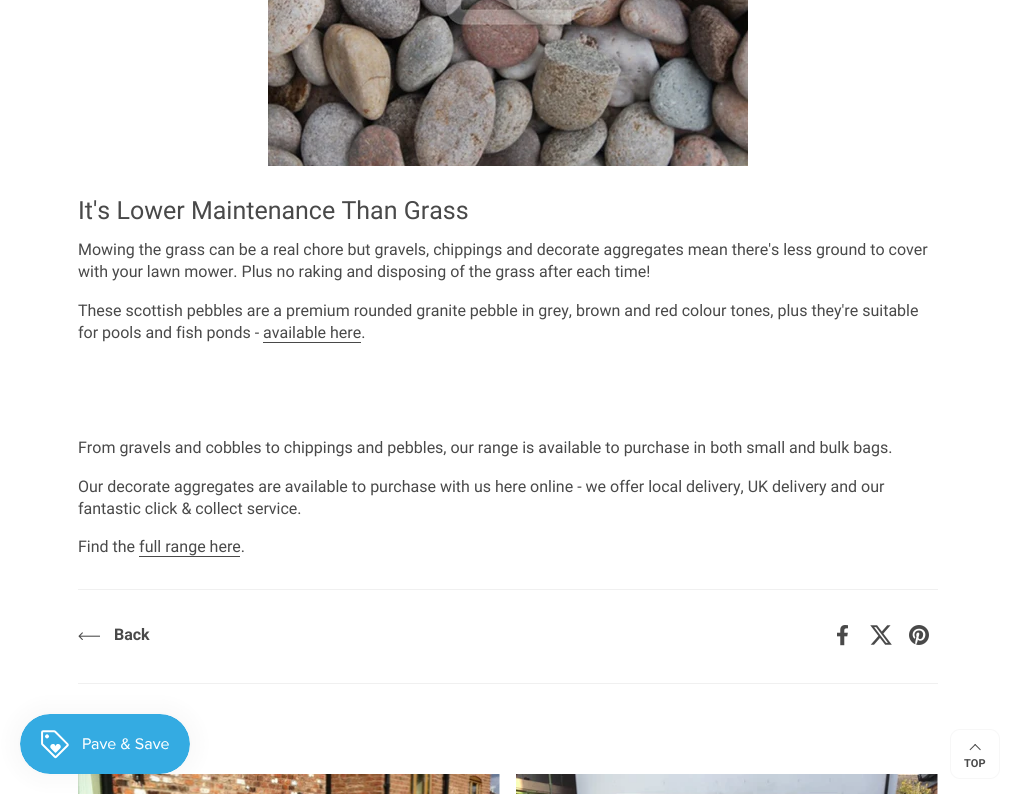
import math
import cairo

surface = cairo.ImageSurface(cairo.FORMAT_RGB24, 1015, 794)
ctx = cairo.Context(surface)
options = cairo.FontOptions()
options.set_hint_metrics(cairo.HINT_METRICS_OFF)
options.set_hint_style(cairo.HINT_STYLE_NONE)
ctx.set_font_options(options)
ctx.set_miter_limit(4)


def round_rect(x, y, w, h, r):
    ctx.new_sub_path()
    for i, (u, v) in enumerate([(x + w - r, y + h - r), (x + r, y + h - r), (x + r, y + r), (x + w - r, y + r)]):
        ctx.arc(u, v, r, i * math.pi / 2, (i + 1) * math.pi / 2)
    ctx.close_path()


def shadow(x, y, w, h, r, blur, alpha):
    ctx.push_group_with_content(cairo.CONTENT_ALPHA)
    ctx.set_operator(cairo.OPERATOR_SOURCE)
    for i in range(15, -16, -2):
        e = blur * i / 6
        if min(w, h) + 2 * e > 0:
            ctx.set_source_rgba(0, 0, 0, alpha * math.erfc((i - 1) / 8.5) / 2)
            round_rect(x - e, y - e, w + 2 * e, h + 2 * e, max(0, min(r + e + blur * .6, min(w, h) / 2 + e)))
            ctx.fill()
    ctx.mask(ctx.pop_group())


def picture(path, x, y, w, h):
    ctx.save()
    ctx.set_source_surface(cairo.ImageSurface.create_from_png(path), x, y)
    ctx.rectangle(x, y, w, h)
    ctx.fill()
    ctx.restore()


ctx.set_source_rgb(1, 1, 1)
ctx.paint()
picture("img1.png", 268, 0, 480, 166)
ctx.select_font_face("Roboto")
ctx.set_font_size(25)
ctx.set_source_rgb(0.286, 0.286, 0.286)
ctx.move_to(78, 219)
ctx.show_text("It's Lower Maintenance Than Grass")
ctx.set_font_size(16)
ctx.move_to(78, 255)
ctx.show_text("Mowing the grass can be a real chore but gravels, chippings and decorate aggregates mean there's less ground to cover")
ctx.move_to(78, 277)
ctx.show_text("with your lawn mower. Plus no raking and disposing of the grass after each time!")
ctx.move_to(78, 316)
ctx.show_text("These scottish pebbles are a premium rounded granite pebble in grey, brown and red colour tones, plus they're suitable")
ctx.move_to(78, 338)
ctx.show_text("for pools and fish ponds - available here.")
ctx.rectangle(263, 342, 98, 1)
ctx.fill()
ctx.move_to(78, 453)
ctx.show_text("From gravels and cobbles to chippings and pebbles, our range is available to purchase in both small and bulk bags.")
ctx.move_to(78, 492)
ctx.show_text("Our decorate aggregates are available to purchase with us here online - we offer local delivery, UK delivery and our")
ctx.move_to(78, 514)
ctx.show_text("fantastic click & collect service.")
ctx.move_to(78, 552)
ctx.show_text("Find the full range here.")
ctx.rectangle(139, 556, 101, 1)
ctx.fill()
ctx.set_source_rgb(0.941, 0.941, 0.941)
ctx.rectangle(78, 589, 860, 1)
ctx.fill()
picture("img2.png", 78, 632, 22, 8)
ctx.select_font_face("Roboto", cairo.FONT_SLANT_NORMAL, cairo.FONT_WEIGHT_BOLD)
ctx.set_source_rgb(0.286, 0.286, 0.286)
ctx.move_to(114, 640)
ctx.show_text("Back")
picture("img3.png", 837, 625, 11, 21)
picture("img4.png", 870, 625, 22, 20)
picture("img5.png", 909, 625, 20, 20)
ctx.set_source_rgb(0.941, 0.941, 0.941)
ctx.rectangle(78, 683, 860, 1)
ctx.fill()
picture("img6.png", 78, 774, 422, 20)
picture("img7.png", 516, 774, 422, 20)
ctx.set_source_rgb(0, 0, 0)
shadow(20, 714, 170, 60, 30, 12.5, 0.05)
picture("img8.png", 20, 714, 170, 60)
round_rect(950.5, 729.5, 49, 49, 9.5)
ctx.set_source_rgb(0.965, 0.965, 0.965)
ctx.set_line_width(1)
ctx.stroke()
picture("img9.png", 969, 744, 12, 7)
ctx.set_font_size(11)
ctx.set_source_rgb(0.286, 0.286, 0.286)
ctx.move_to(964, 767)
ctx.show_text("TOP")
surface.write_to_png("page.png")
